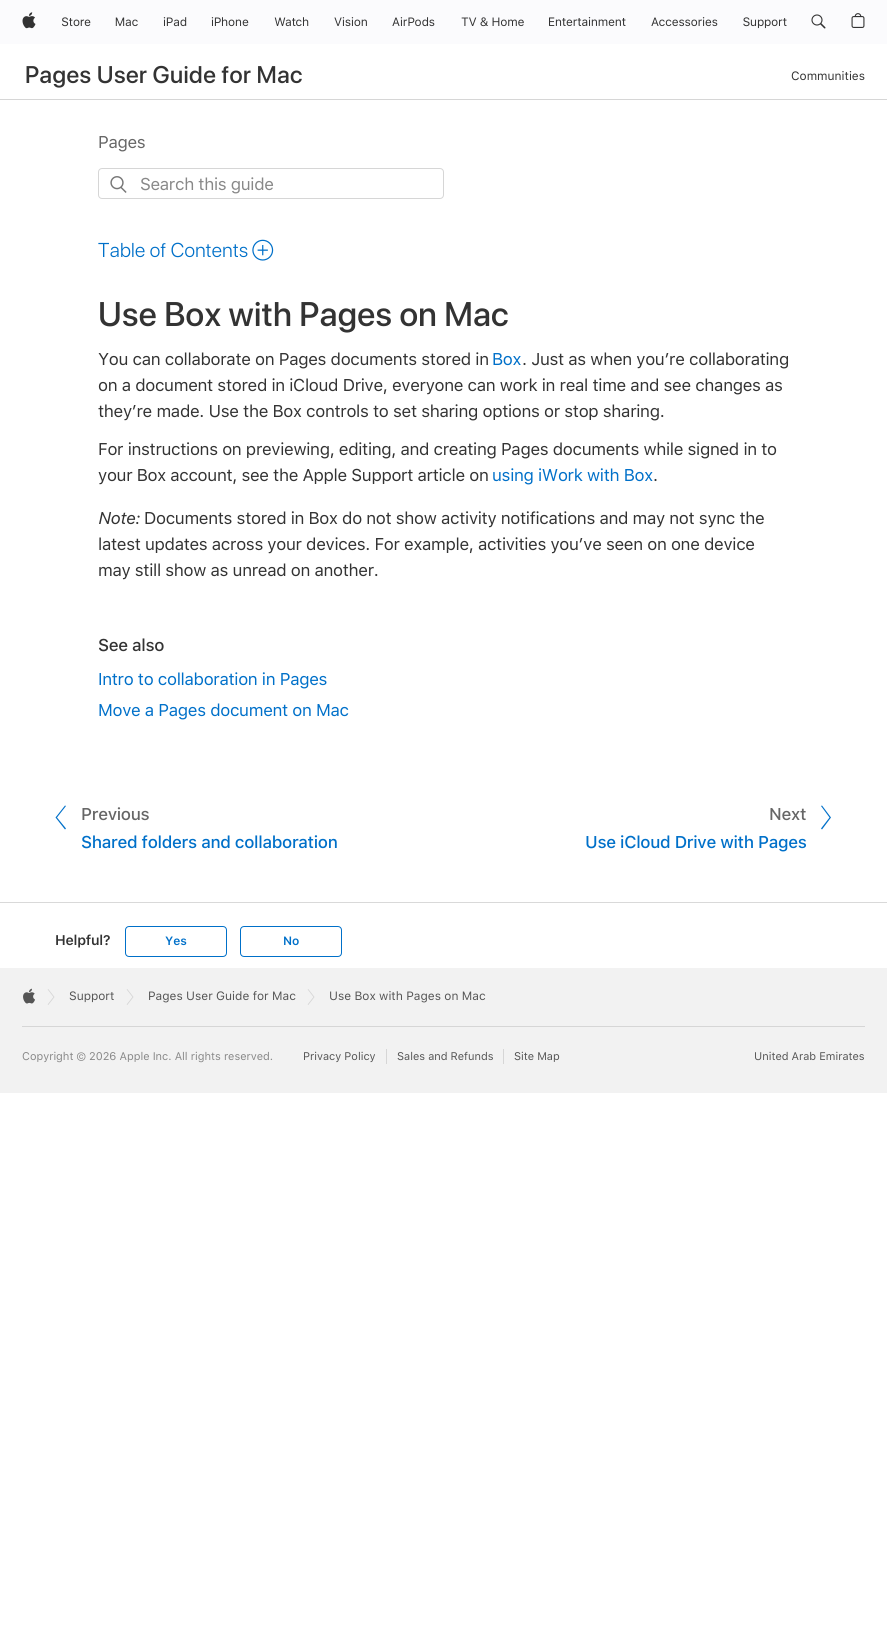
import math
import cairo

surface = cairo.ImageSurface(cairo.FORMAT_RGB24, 887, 1650)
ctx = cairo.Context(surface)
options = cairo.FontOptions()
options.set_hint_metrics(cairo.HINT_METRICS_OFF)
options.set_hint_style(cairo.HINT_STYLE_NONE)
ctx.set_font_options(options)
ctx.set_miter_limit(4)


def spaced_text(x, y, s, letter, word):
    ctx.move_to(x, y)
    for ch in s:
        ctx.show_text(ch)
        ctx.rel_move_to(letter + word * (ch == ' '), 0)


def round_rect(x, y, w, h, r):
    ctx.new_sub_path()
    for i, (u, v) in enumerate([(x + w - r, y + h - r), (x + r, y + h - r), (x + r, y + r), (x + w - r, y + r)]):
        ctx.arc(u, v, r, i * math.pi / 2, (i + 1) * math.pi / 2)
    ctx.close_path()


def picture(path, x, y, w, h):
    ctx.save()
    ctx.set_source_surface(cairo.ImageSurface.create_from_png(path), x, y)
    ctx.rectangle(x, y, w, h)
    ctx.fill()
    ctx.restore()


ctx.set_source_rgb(1, 1, 1)
ctx.paint()
ctx.set_source_rgb(0.984, 0.984, 0.992)
ctx.rectangle(0, 0, 887, 44)
ctx.fill()
picture("img1.png", 22, 12, 14, 17)
picture("img2.png", 62, 17, 29, 10)
picture("img3.png", 115, 17, 23, 10)
picture("img4.png", 163, 17, 24, 10)
picture("img5.png", 211, 17, 38, 10)
picture("img6.png", 274, 17, 35, 10)
picture("img7.png", 334, 17, 33, 10)
picture("img8.png", 392, 17, 43, 10)
picture("img9.png", 461, 17, 63, 10)
picture("img10.png", 549, 17, 77, 9)
picture("img11.png", 651, 17, 67, 10)
picture("img12.png", 743, 17, 44, 12)
picture("img13.png", 811, 14, 15, 15)
picture("img14.png", 851, 13, 14, 15)
ctx.select_font_face("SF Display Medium")
ctx.set_font_size(24)
ctx.set_source_rgb(0.2, 0.2, 0.2)
spaced_text(25, 83, "Pages User Guide for Mac", 0.4, 0)
ctx.select_font_face("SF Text")
ctx.set_font_size(12)
ctx.move_to(791, 80)
ctx.show_text("Communities")
ctx.set_source_rgb(0.839, 0.839, 0.839)
ctx.rectangle(0, 99, 887, 1)
ctx.fill()
ctx.set_font_size(17)
ctx.set_source_rgb(0.4, 0.4, 0.4)
spaced_text(98, 148, "Pages", -0.35, 0)
round_rect(98.5, 168.5, 345, 30, 3.5)
ctx.set_source_rgb(0.839, 0.839, 0.839)
ctx.set_line_width(1)
ctx.stroke()
picture("img15.png", 110, 176, 17, 17)
ctx.set_source_rgb(0.533, 0.533, 0.533)
spaced_text(140, 190, "Search this guide", -0.35, 0)
ctx.select_font_face("SF Display Light")
ctx.set_font_size(20)
ctx.set_source_rgb(0, 0.439, 0.788)
spaced_text(98, 257, "Table of Contents", 0.3, 0)
picture("img16.png", 252, 239, 22, 22)
ctx.select_font_face("SF Display Medium")
ctx.set_font_size(34)
ctx.set_source_rgb(0.2, 0.2, 0.2)
spaced_text(98, 326, "Use Box with Pages on Mac", 0.3, 0)
ctx.select_font_face("SF Text")
ctx.set_font_size(17)
spaced_text(98, 365, "You can collaborate on Pages documents stored in", -0.35, 0)
ctx.set_source_rgb(0, 0.439, 0.788)
spaced_text(492, 365, "Box", -0.35, 0)
ctx.set_source_rgb(0.2, 0.2, 0.2)
spaced_text(522, 365, ". Just as when you’re collaborating", -0.35, 0)
spaced_text(98, 391, "on a document stored in iCloud Drive, everyone can work in real time and see changes as", -0.35, 0)
spaced_text(98, 417, "they’re made. Use the Box controls to set sharing options or stop sharing.", -0.35, 0)
spaced_text(98, 455, "For instructions on previewing, editing, and creating Pages documents while signed in to", -0.35, 0)
spaced_text(98, 481, "your Box account, see the Apple Support article on", -0.35, 0)
ctx.set_source_rgb(0, 0.439, 0.788)
spaced_text(492, 481, "using iWork with Box", -0.35, 0)
ctx.set_source_rgb(0.2, 0.2, 0.2)
spaced_text(653, 481, ".", -0.35, 0)
ctx.select_font_face("SF Text", cairo.FONT_SLANT_ITALIC)
spaced_text(98, 524, "Note:", -0.35, 0)
ctx.select_font_face("SF Text")
spaced_text(144, 524, "Documents stored in Box do not show activity notifications and may not sync the", -0.35, 0)
spaced_text(98, 550, "latest updates across your devices. For example, activities you’ve seen on one device", -0.35, 0)
spaced_text(98, 576, "may still show as unread on another.", -0.35, 0)
ctx.select_font_face("SF Text Medium")
spaced_text(98, 651, "See also", -0.35, 0)
ctx.select_font_face("SF Text")
ctx.set_source_rgb(0, 0.439, 0.788)
spaced_text(98, 685, "Intro to collaboration in Pages", -0.35, 0)
spaced_text(98, 716, "Move a Pages document on Mac", -0.35, 0)
ctx.new_path()
ctx.move_to(65, 805.5)
ctx.line_to(55.5, 817.5)
ctx.line_to(65, 829.5)
ctx.line_to(66, 828.5)
ctx.line_to(57, 817.5)
ctx.line_to(66, 806)
ctx.close_path()
ctx.fill()
ctx.select_font_face("SF Text Medium")
ctx.set_source_rgb(0.4, 0.4, 0.4)
spaced_text(81, 820, "Previous", -0.35, 0)
ctx.set_source_rgb(0, 0.439, 0.788)
spaced_text(81, 848, "Shared folders and collaboration", -0.35, 0)
ctx.set_source_rgb(0.4, 0.4, 0.4)
spaced_text(769, 820, "Next", -0.35, 0)
ctx.set_source_rgb(0, 0.439, 0.788)
ctx.new_path()
ctx.move_to(821, 806)
ctx.line_to(829.5, 817.5)
ctx.line_to(821, 828.5)
ctx.line_to(822, 829.5)
ctx.line_to(831, 817.5)
ctx.line_to(822, 805.5)
ctx.close_path()
ctx.fill()
spaced_text(585, 848, "Use iCloud Drive with Pages", -0.35, 0)
ctx.set_source_rgb(0.851, 0.851, 0.851)
ctx.rectangle(0, 902, 887, 1)
ctx.fill()
ctx.select_font_face("SF Text SemiBold")
ctx.set_font_size(14)
ctx.set_source_rgb(0.2, 0.2, 0.2)
spaced_text(55, 945, "Helpful?", -0.25, 0)
round_rect(125.5, 926.5, 101, 30, 3.5)
ctx.set_source_rgb(0, 0.439, 0.788)
ctx.stroke()
ctx.set_font_size(12)
ctx.move_to(165, 945)
ctx.show_text("Yes")
round_rect(240.5, 926.5, 101, 30, 3.5)
ctx.stroke()
ctx.move_to(283, 945)
ctx.show_text("No")
ctx.set_source_rgb(0.949, 0.949, 0.949)
ctx.rectangle(0, 968, 887, 125)
ctx.fill()
picture("img17.png", 23, 988, 12, 16)
picture("img18.png", 47, 989, 8, 16)
ctx.select_font_face("SF Text")
ctx.set_source_rgb(0.333, 0.333, 0.333)
ctx.move_to(69, 1000)
ctx.show_text("Support")
picture("img18.png", 126, 989, 8, 16)
ctx.move_to(148, 1000)
ctx.show_text("Pages User Guide for Mac")
picture("img18.png", 307, 989, 8, 16)
ctx.move_to(329, 1000)
ctx.show_text("Use Box with Pages on Mac")
ctx.set_source_rgb(0.839, 0.839, 0.839)
ctx.rectangle(22, 1026, 843, 1)
ctx.fill()
ctx.set_font_size(11.05)
ctx.set_source_rgb(0.533, 0.533, 0.533)
ctx.move_to(22, 1060)
ctx.show_text("Copyright © 2026 Apple Inc. All rights reserved.")
ctx.set_source_rgb(0.839, 0.839, 0.839)
ctx.rectangle(386, 1049, 1, 15)
ctx.fill()
ctx.set_source_rgb(0.333, 0.333, 0.333)
ctx.move_to(303, 1060)
ctx.show_text("Privacy Policy")
ctx.set_source_rgb(0.839, 0.839, 0.839)
ctx.rectangle(503, 1049, 1, 15)
ctx.fill()
ctx.set_source_rgb(0.333, 0.333, 0.333)
ctx.move_to(397, 1060)
ctx.show_text("Sales and Refunds")
ctx.move_to(514, 1060)
ctx.show_text("Site Map")
ctx.move_to(754, 1060)
ctx.show_text("United Arab Emirates")
surface.write_to_png("page.png")
